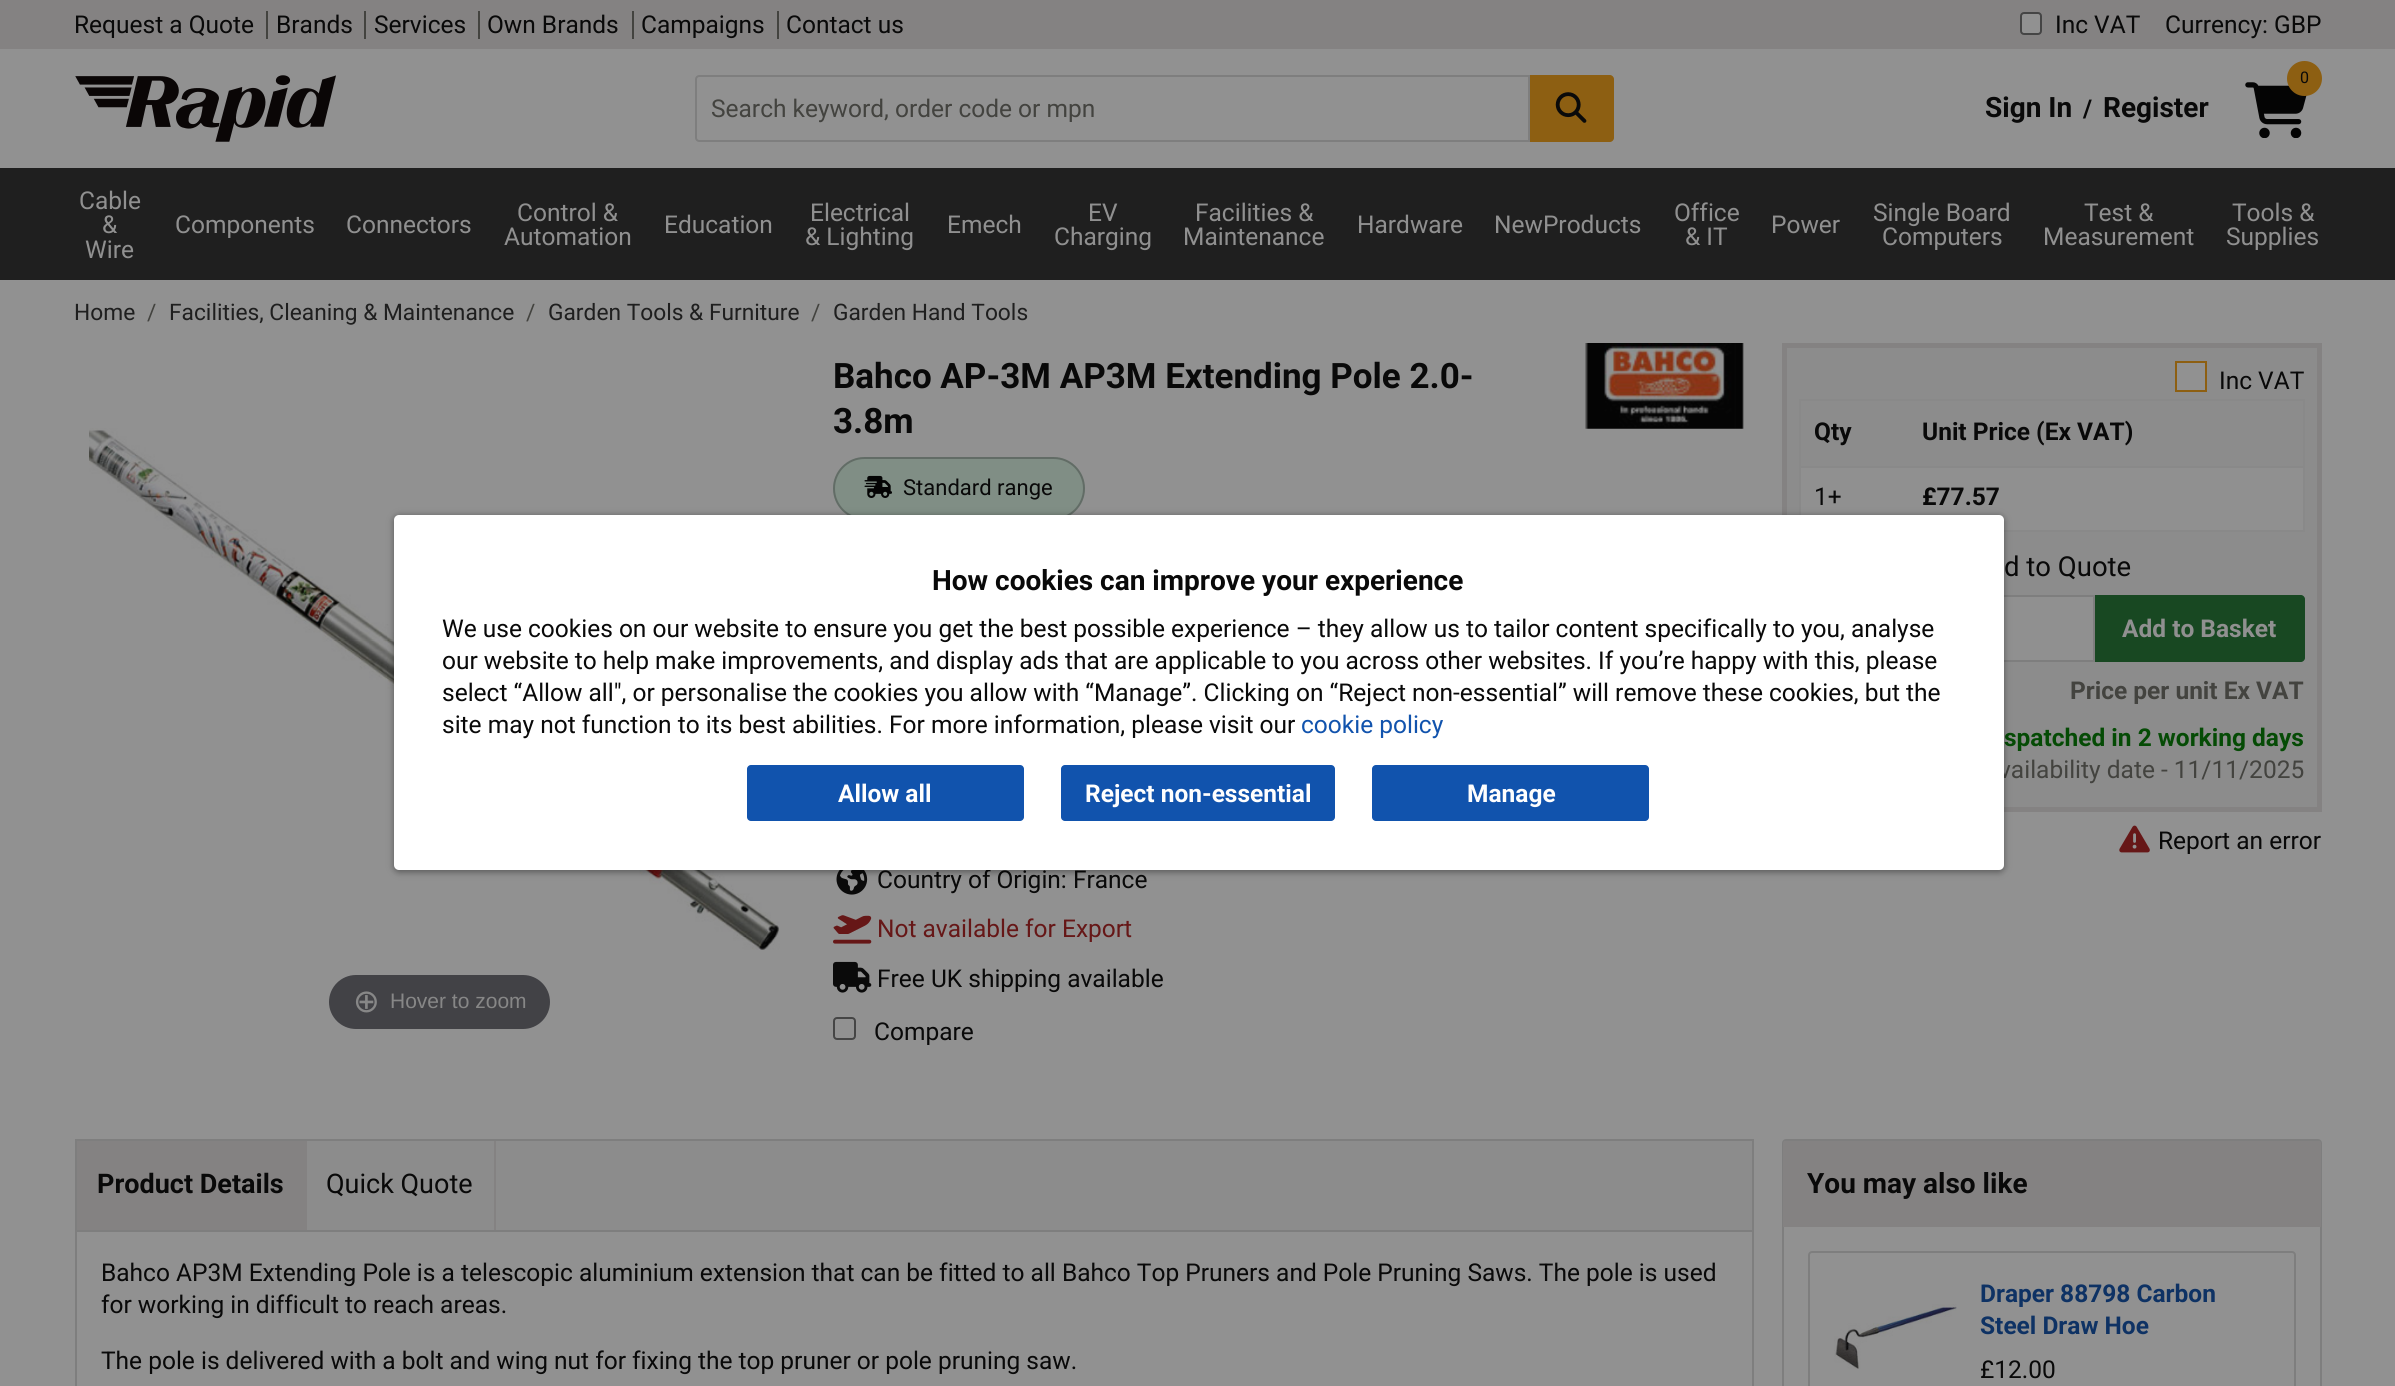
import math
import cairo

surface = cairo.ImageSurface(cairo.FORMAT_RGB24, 2395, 1386)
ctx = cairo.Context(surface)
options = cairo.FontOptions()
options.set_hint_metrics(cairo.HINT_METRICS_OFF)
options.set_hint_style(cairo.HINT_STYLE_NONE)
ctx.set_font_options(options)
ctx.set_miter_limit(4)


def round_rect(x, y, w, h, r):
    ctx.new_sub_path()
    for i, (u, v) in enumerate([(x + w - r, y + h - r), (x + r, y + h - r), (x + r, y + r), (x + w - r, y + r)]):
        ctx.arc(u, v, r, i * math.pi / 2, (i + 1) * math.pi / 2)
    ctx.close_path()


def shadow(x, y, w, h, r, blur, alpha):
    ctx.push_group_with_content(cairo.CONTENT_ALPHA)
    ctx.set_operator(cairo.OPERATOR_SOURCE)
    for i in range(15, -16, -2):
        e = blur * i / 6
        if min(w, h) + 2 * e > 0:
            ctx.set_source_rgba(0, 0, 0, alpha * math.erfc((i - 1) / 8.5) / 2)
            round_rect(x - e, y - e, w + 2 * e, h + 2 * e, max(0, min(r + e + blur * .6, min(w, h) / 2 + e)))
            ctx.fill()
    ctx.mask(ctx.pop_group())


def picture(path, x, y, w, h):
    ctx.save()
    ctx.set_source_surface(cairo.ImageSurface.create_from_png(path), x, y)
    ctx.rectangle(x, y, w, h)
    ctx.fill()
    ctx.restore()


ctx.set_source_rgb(0.569, 0.569, 0.569)
ctx.paint()
ctx.set_source_rgb(0.518, 0.51, 0.51)
ctx.rectangle(0, 0, 2395, 49)
ctx.fill()
ctx.select_font_face("Roboto")
ctx.set_font_size(24.5)
ctx.set_source_rgb(0.039, 0.039, 0.039)
ctx.move_to(74, 33)
ctx.show_text("Request a Quote")
ctx.set_source_rgb(0.263, 0.263, 0.247)
ctx.rectangle(266, 11, 2, 28)
ctx.fill()
ctx.set_source_rgb(0.039, 0.039, 0.039)
ctx.move_to(276, 33)
ctx.show_text("Brands")
ctx.set_source_rgb(0.263, 0.263, 0.247)
ctx.rectangle(364, 11, 2, 28)
ctx.fill()
ctx.set_source_rgb(0.039, 0.039, 0.039)
ctx.move_to(374, 33)
ctx.show_text("Services")
ctx.set_source_rgb(0.263, 0.263, 0.247)
ctx.rectangle(478, 11, 2, 28)
ctx.fill()
ctx.set_source_rgb(0.039, 0.039, 0.039)
ctx.move_to(487, 33)
ctx.show_text("Own Brands")
ctx.set_source_rgb(0.263, 0.263, 0.247)
ctx.rectangle(632, 11, 2, 28)
ctx.fill()
ctx.set_source_rgb(0.039, 0.039, 0.039)
ctx.move_to(641, 33)
ctx.show_text("Campaigns")
ctx.set_source_rgb(0.263, 0.263, 0.247)
ctx.rectangle(777, 11, 2, 28)
ctx.fill()
ctx.set_source_rgb(0.039, 0.039, 0.039)
ctx.move_to(786, 33)
ctx.show_text("Contact us")
ctx.set_source_rgb(0.569, 0.569, 0.569)
round_rect(2021, 13, 20, 21, 3)
ctx.fill_preserve()
ctx.set_source_rgb(0.271, 0.271, 0.271)
ctx.stroke()
ctx.set_source_rgb(0.039, 0.039, 0.039)
ctx.move_to(2055, 33)
ctx.show_text("Inc VAT")
ctx.move_to(2165, 33)
ctx.show_text("Currency: GBP")
picture("img1.png", 75, 75, 261, 67)
ctx.new_path()
ctx.move_to(699, 76)
ctx.line_to(1529, 76)
ctx.line_to(1529, 141)
ctx.line_to(699, 141)
ctx.curve_to(697.5, 141, 696, 139.5, 696, 138)
ctx.line_to(696, 79)
ctx.curve_to(696, 77.5, 697.5, 76, 699, 76)
ctx.close_path()
ctx.set_source_rgb(0.494, 0.494, 0.494)
ctx.stroke()
ctx.set_source_rgb(0.263, 0.263, 0.247)
ctx.move_to(711, 117)
ctx.show_text("Search keyword, order code or mpn")
ctx.set_source_rgb(0.553, 0.373, 0.071)
ctx.new_path()
ctx.move_to(1530, 75)
ctx.line_to(1610, 75)
ctx.curve_to(1612, 75, 1614, 77, 1614, 79)
ctx.line_to(1614, 138)
ctx.curve_to(1614, 140, 1612, 142, 1610, 142)
ctx.line_to(1530, 142)
ctx.close_path()
ctx.fill()
picture("img2.png", 1555, 92, 32, 31)
picture("img3.png", 2245, 82, 62, 56)
ctx.arc(2304.5, 78.5, 17.5, 0, 2 * math.pi)
ctx.fill()
ctx.set_font_size(16)
ctx.set_source_rgb(0.039, 0.039, 0.039)
ctx.move_to(2300, 83)
ctx.show_text("0")
ctx.select_font_face("Roboto", cairo.FONT_SLANT_NORMAL, cairo.FONT_WEIGHT_BOLD)
ctx.set_font_size(28)
ctx.move_to(1985, 117)
ctx.show_text("Sign In")
ctx.set_font_size(24.5)
ctx.move_to(2083, 117)
ctx.show_text("/")
ctx.set_font_size(28)
ctx.move_to(2103, 117)
ctx.show_text("Register")
ctx.set_source_rgb(0.122, 0.122, 0.122)
ctx.rectangle(0, 168, 2395, 112)
ctx.fill()
ctx.select_font_face("Roboto")
ctx.set_font_size(24.5)
ctx.set_source_rgb(0.565, 0.565, 0.565)
ctx.move_to(79, 209)
ctx.show_text("Cable")
ctx.move_to(102, 233)
ctx.show_text("&")
ctx.move_to(85, 258)
ctx.show_text("Wire")
ctx.move_to(175, 233)
ctx.show_text("Components")
ctx.move_to(346, 233)
ctx.show_text("Connectors")
ctx.move_to(517, 221)
ctx.show_text("Control &")
ctx.move_to(504, 245)
ctx.show_text("Automation")
ctx.move_to(664, 233)
ctx.show_text("Education")
ctx.move_to(810, 221)
ctx.show_text("Electrical")
ctx.move_to(805, 245)
ctx.show_text("& Lighting")
ctx.move_to(947, 233)
ctx.show_text("Emech")
ctx.move_to(1088, 221)
ctx.show_text("EV")
ctx.move_to(1054, 245)
ctx.show_text("Charging")
ctx.move_to(1195, 221)
ctx.show_text("Facilities &")
ctx.move_to(1183, 245)
ctx.show_text("Maintenance")
ctx.move_to(1357, 233)
ctx.show_text("Hardware")
ctx.move_to(1494, 233)
ctx.show_text("NewProducts")
ctx.move_to(1674, 221)
ctx.show_text("Office")
ctx.move_to(1685, 245)
ctx.show_text("& IT")
ctx.move_to(1771, 233)
ctx.show_text("Power")
ctx.move_to(1873, 221)
ctx.show_text("Single Board")
ctx.move_to(1882, 245)
ctx.show_text("Computers")
ctx.move_to(2084, 221)
ctx.show_text("Test &")
ctx.move_to(2043, 245)
ctx.show_text("Measurement")
ctx.move_to(2232, 221)
ctx.show_text("Tools &")
ctx.move_to(2226, 245)
ctx.show_text("Supplies")
ctx.set_font_size(22.75)
ctx.set_source_rgb(0.122, 0.122, 0.122)
ctx.move_to(74, 320)
ctx.show_text("Home")
ctx.set_source_rgb(0.263, 0.263, 0.247)
ctx.move_to(147, 320)
ctx.show_text("/")
ctx.set_source_rgb(0.122, 0.122, 0.122)
ctx.move_to(169, 320)
ctx.show_text("Facilities, Cleaning & Maintenance")
ctx.set_source_rgb(0.263, 0.263, 0.247)
ctx.move_to(526, 320)
ctx.show_text("/")
ctx.set_source_rgb(0.122, 0.122, 0.122)
ctx.move_to(548, 320)
ctx.show_text("Garden Tools & Furniture")
ctx.set_source_rgb(0.263, 0.263, 0.247)
ctx.move_to(811, 320)
ctx.show_text("/")
ctx.set_source_rgb(0.122, 0.122, 0.122)
ctx.move_to(833, 320)
ctx.show_text("Garden Hand Tools")
ctx.select_font_face("Roboto", cairo.FONT_SLANT_NORMAL, cairo.FONT_WEIGHT_BOLD)
ctx.set_font_size(35)
ctx.set_source_rgb(0.039, 0.039, 0.039)
ctx.move_to(833, 388)
ctx.show_text("Bahco AP-3M AP3M Extending Pole 2.0-")
ctx.move_to(833, 433)
ctx.show_text("3.8m")
picture("img4.png", 1585, 343, 159, 86)
ctx.set_source_rgb(0.502, 0.557, 0.522)
round_rect(833, 457, 252, 63, 31.5)
ctx.fill()
round_rect(834, 458, 250, 61, 30.5)
ctx.set_source_rgba(0.039, 0.039, 0.039, 0.25)
ctx.stroke()
picture("img5.png", 864, 475, 28, 23)
ctx.select_font_face("Roboto")
ctx.set_font_size(22)
ctx.set_source_rgb(0.039, 0.039, 0.039)
ctx.move_to(903, 495)
ctx.show_text("Standard range")
picture("img6.png", 836, 870, 32, 25)
ctx.set_font_size(24.5)
ctx.move_to(877, 888)
ctx.show_text("Country of Origin: France")
picture("img7.png", 833, 915, 39, 29)
ctx.set_source_rgb(0.4, 0.09, 0.09)
ctx.move_to(877, 937)
ctx.show_text("Not available for Export")
picture("img8.png", 833, 961, 39, 32)
ctx.set_source_rgb(0.039, 0.039, 0.039)
ctx.move_to(877, 987)
ctx.show_text("Free UK shipping available")
round_rect(834, 1018, 21, 21, 3)
ctx.set_source_rgb(0.271, 0.271, 0.271)
ctx.stroke()
ctx.set_source_rgb(0.039, 0.039, 0.039)
ctx.move_to(874, 1040)
ctx.show_text("Compare")
ctx.set_source_rgb(0.549, 0.549, 0.549)
ctx.rectangle(1784.5, 345.5, 535, 464)
ctx.fill_preserve()
ctx.set_source_rgb(0.518, 0.51, 0.51)
ctx.set_line_width(5)
ctx.stroke()
ctx.set_source_rgb(0.569, 0.569, 0.569)
ctx.rectangle(2176, 362, 30, 29)
ctx.fill_preserve()
ctx.set_source_rgb(0.553, 0.373, 0.071)
ctx.set_line_width(2)
ctx.stroke()
ctx.set_source_rgb(0.039, 0.039, 0.039)
ctx.move_to(2219, 389)
ctx.show_text("Inc VAT")
ctx.set_source_rgb(0.537, 0.537, 0.537)
ctx.rectangle(1799, 399, 506, 2)
ctx.fill()
ctx.rectangle(1799, 466, 506, 2)
ctx.fill()
ctx.rectangle(2303, 466, 2, 66)
ctx.fill()
ctx.rectangle(2303, 399, 2, 68)
ctx.fill()
ctx.rectangle(1799, 466, 2, 49)
ctx.fill()
ctx.rectangle(1799, 399, 2, 68)
ctx.fill()
ctx.select_font_face("Roboto", cairo.FONT_SLANT_NORMAL, cairo.FONT_WEIGHT_BOLD)
ctx.set_source_rgb(0.039, 0.039, 0.039)
ctx.move_to(1814, 440)
ctx.show_text("Qty")
ctx.move_to(1922, 440)
ctx.show_text("Unit Price (Ex VAT)")
ctx.set_source_rgb(0.565, 0.565, 0.565)
ctx.rectangle(1801, 468, 502, 62)
ctx.fill()
ctx.set_source_rgb(0.537, 0.537, 0.537)
ctx.rectangle(2004, 530, 301, 2)
ctx.fill()
ctx.select_font_face("Roboto")
ctx.set_source_rgb(0.039, 0.039, 0.039)
ctx.move_to(1814, 505)
ctx.show_text("1+")
ctx.select_font_face("Roboto", cairo.FONT_SLANT_NORMAL, cairo.FONT_WEIGHT_BOLD)
ctx.move_to(1922, 505)
ctx.show_text("£77.57")
ctx.select_font_face("Roboto")
ctx.set_font_size(27.5)
ctx.move_to(2004, 576)
ctx.show_text("d to Quote")
ctx.set_source_rgb(0.565, 0.565, 0.565)
ctx.rectangle(2004, 597, 89, 63)
ctx.fill()
ctx.rectangle(1800, 596, 294, 65)
ctx.set_source_rgb(0.494, 0.494, 0.494)
ctx.stroke()
ctx.set_source_rgb(0.094, 0.282, 0.133)
ctx.new_path()
ctx.move_to(2095, 595)
ctx.line_to(2301, 595)
ctx.curve_to(2303, 595, 2305, 597, 2305, 599)
ctx.line_to(2305, 658)
ctx.curve_to(2305, 660, 2303, 662, 2301, 662)
ctx.line_to(2095, 662)
ctx.close_path()
ctx.fill()
ctx.select_font_face("Roboto", cairo.FONT_SLANT_NORMAL, cairo.FONT_WEIGHT_BOLD)
ctx.set_font_size(24.5)
ctx.set_source_rgb(0.565, 0.565, 0.565)
ctx.move_to(2122, 637)
ctx.show_text("Add to Basket")
ctx.set_source_rgb(0.263, 0.263, 0.247)
ctx.move_to(2070, 699)
ctx.show_text("Price per unit Ex VAT")
ctx.set_source_rgb(0.02, 0.294, 0.02)
ctx.move_to(2004, 746)
ctx.show_text("spatched in 2 working days")
ctx.select_font_face("Roboto")
ctx.set_source_rgb(0.263, 0.263, 0.247)
ctx.move_to(1999, 778)
ctx.show_text("vailability date - 11/11/2025")
picture("img9.png", 2119, 825, 31, 28)
ctx.set_source_rgb(0.039, 0.039, 0.039)
ctx.move_to(2158, 849)
ctx.show_text("Report an error")
picture("img10.png", 89, 428, 691, 522)
ctx.set_source_rgb(0.259, 0.259, 0.275)
round_rect(329, 975, 221, 54, 27)
ctx.fill()
ctx.select_font_face("DejaVu Sans")
ctx.set_font_size(32)
ctx.set_source_rgb(0.529, 0.529, 0.529)
ctx.move_to(353, 1012)
ctx.show_text("⊕")
ctx.select_font_face("Liberation Sans")
ctx.set_font_size(21)
ctx.move_to(390, 1008)
ctx.show_text("Hover to zoom")
ctx.set_source_rgb(0.549, 0.549, 0.549)
ctx.rectangle(307, 1141, 1445, 89)
ctx.fill()
ctx.rectangle(76, 1140, 1677, 91)
ctx.set_source_rgb(0.494, 0.494, 0.494)
ctx.stroke()
ctx.set_source_rgb(0.518, 0.51, 0.51)
ctx.rectangle(77, 1141, 230, 89)
ctx.fill()
ctx.select_font_face("Roboto", cairo.FONT_SLANT_NORMAL, cairo.FONT_WEIGHT_BOLD)
ctx.set_font_size(27)
ctx.set_source_rgb(0.039, 0.039, 0.039)
ctx.move_to(97, 1193)
ctx.show_text("Product Details")
ctx.set_source_rgb(0.518, 0.51, 0.51)
ctx.rectangle(494, 1141, 2, 89)
ctx.fill()
ctx.select_font_face("Roboto")
ctx.set_source_rgb(0.039, 0.039, 0.039)
ctx.move_to(326, 1193)
ctx.show_text("Quick Quote")
ctx.set_source_rgb(0.494, 0.494, 0.494)
ctx.rectangle(1752, 1232, 2, 154)
ctx.fill()
ctx.rectangle(75, 1232, 2, 154)
ctx.fill()
ctx.set_font_size(24.5)
ctx.set_source_rgb(0.039, 0.039, 0.039)
ctx.move_to(101, 1281)
ctx.show_text("Bahco AP3M Extending Pole is a telescopic aluminium extension that can be fitted to all Bahco Top Pruners and Pole Pruning Saws. The pole is used")
ctx.move_to(101, 1313)
ctx.show_text("for working in difficult to reach areas.")
ctx.move_to(101, 1369)
ctx.show_text("The pole is delivered with a bolt and wing nut for fixing the top pruner or pole pruning saw.")
round_rect(1783, 1140, 538, 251, 3)
ctx.set_source_rgb(0.494, 0.494, 0.494)
ctx.stroke()
ctx.set_source_rgb(0.518, 0.51, 0.51)
ctx.new_path()
ctx.move_to(1785.5, 1141)
ctx.line_to(2318.5, 1141)
ctx.curve_to(2320, 1141, 2321, 1142, 2321, 1143.5)
ctx.line_to(2321, 1227)
ctx.line_to(1783, 1227)
ctx.line_to(1783, 1143.5)
ctx.curve_to(1783, 1142, 1784, 1141, 1785.5, 1141)
ctx.close_path()
ctx.fill()
ctx.select_font_face("Roboto", cairo.FONT_SLANT_NORMAL, cairo.FONT_WEIGHT_BOLD)
ctx.set_font_size(28)
ctx.set_source_rgb(0.039, 0.039, 0.039)
ctx.move_to(1807, 1193)
ctx.show_text("You may also like")
round_rect(1809, 1252, 486, 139, 3)
ctx.set_source_rgb(0.494, 0.494, 0.494)
ctx.stroke()
picture("img11.png", 1834, 1304, 123, 65)
ctx.set_font_size(24.5)
ctx.set_source_rgb(0.055, 0.196, 0.392)
ctx.move_to(1980, 1302)
ctx.show_text("Draper 88798 Carbon")
ctx.move_to(1980, 1334)
ctx.show_text("Steel Draw Hoe")
ctx.select_font_face("Roboto")
ctx.set_source_rgb(0.039, 0.039, 0.039)
ctx.move_to(1980, 1378)
ctx.show_text("£12.00")
ctx.set_source_rgb(0, 0, 0)
shadow(394, 516, 1610, 356, 5, 3.5, 0.4)
ctx.set_source_rgb(1, 1, 1)
round_rect(394, 515, 1610, 355, 5)
ctx.fill()
ctx.select_font_face("Roboto", cairo.FONT_SLANT_NORMAL, cairo.FONT_WEIGHT_BOLD)
ctx.set_font_size(28)
ctx.set_source_rgb(0.039, 0.039, 0.039)
ctx.move_to(932, 590)
ctx.show_text("How cookies can improve your experience")
ctx.select_font_face("Roboto")
ctx.set_font_size(24.5)
ctx.move_to(442, 637)
ctx.show_text("We use cookies on our website to ensure you get the best possible experience – they allow us to tailor content specifically to you, analyse")
ctx.move_to(442, 669)
ctx.show_text("our website to help make improvements, and display ads that are applicable to you across other websites. If you’re happy with this, please")
ctx.move_to(442, 701)
ctx.show_text("select “Allow all\", or personalise the cookies you allow with “Manage”. Clicking on “Reject non-essential” will remove these cookies, but the")
ctx.move_to(442, 733)
ctx.show_text("site may not function to its best abilities. For more information, please visit our")
ctx.set_source_rgb(0.067, 0.325, 0.678)
ctx.move_to(1301, 733)
ctx.show_text("cookie policy")
round_rect(747, 765, 277, 56, 4)
ctx.fill()
ctx.select_font_face("Roboto", cairo.FONT_SLANT_NORMAL, cairo.FONT_WEIGHT_BOLD)
ctx.set_source_rgb(0.996, 0.996, 0.996)
ctx.move_to(838, 802)
ctx.show_text("Allow all")
ctx.set_source_rgb(0.067, 0.325, 0.678)
round_rect(1061, 765, 274, 56, 4)
ctx.fill()
ctx.set_source_rgb(0.996, 0.996, 0.996)
ctx.move_to(1085, 802)
ctx.show_text("Reject non-essential")
ctx.set_source_rgb(0.067, 0.325, 0.678)
round_rect(1372, 765, 277, 56, 4)
ctx.fill()
ctx.set_source_rgb(0.996, 0.996, 0.996)
ctx.move_to(1467, 802)
ctx.show_text("Manage")
surface.write_to_png("page.png")
